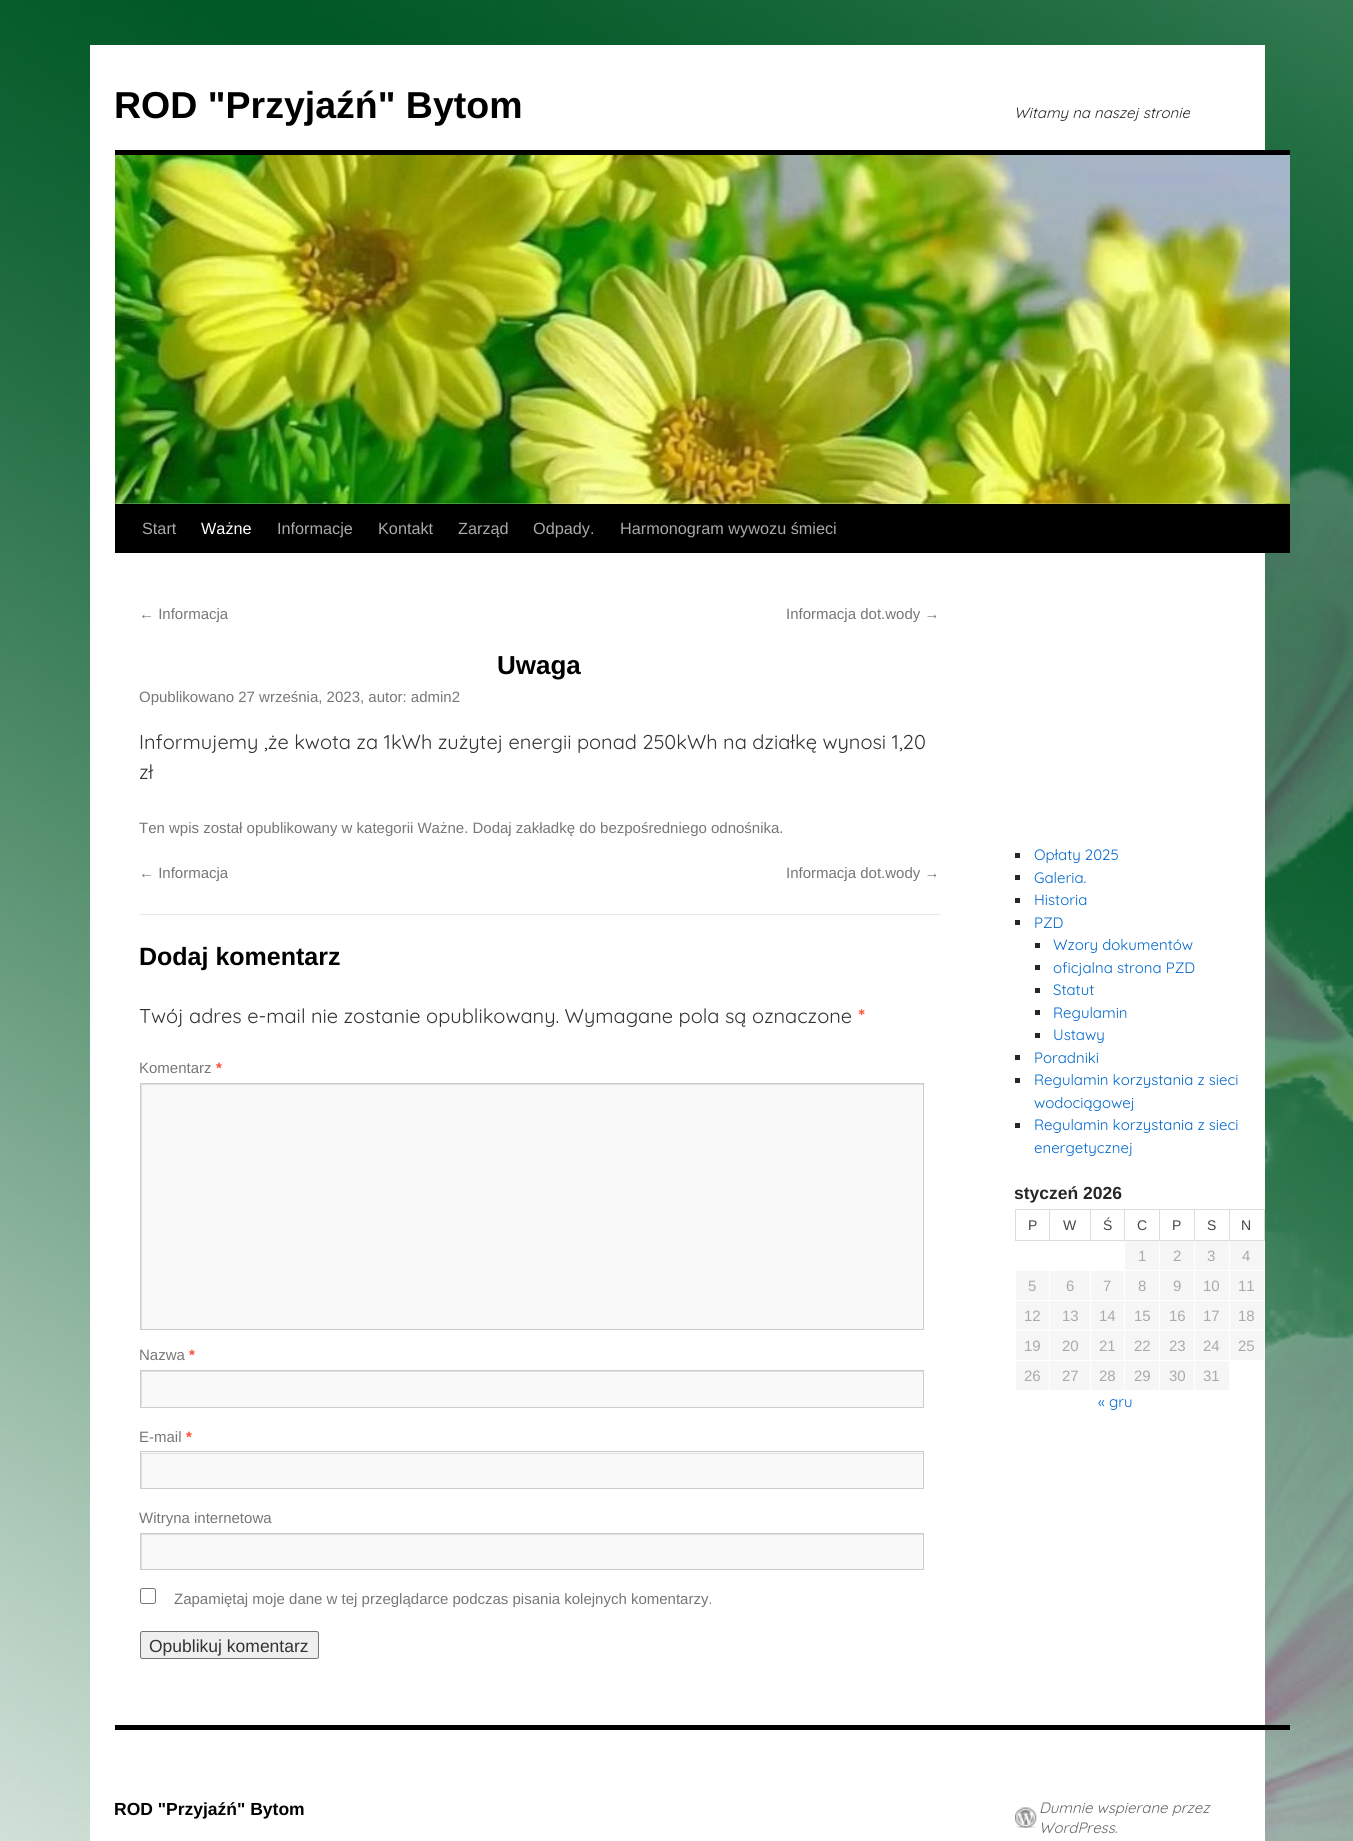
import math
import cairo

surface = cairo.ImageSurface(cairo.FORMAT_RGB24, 1353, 1841)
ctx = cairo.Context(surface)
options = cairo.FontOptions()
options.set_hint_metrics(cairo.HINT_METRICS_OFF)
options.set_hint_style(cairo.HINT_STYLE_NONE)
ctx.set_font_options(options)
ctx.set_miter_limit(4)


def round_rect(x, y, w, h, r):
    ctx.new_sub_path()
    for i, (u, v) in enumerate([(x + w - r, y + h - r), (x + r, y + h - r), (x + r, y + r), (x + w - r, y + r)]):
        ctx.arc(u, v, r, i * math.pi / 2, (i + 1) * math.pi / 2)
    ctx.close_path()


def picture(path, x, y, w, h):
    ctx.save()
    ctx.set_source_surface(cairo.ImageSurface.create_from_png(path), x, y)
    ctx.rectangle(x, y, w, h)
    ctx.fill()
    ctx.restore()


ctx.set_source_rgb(1, 1, 1)
ctx.paint()
picture("img1.png", 0, 0, 1353, 1841)
ctx.set_source_rgb(1, 1, 1)
ctx.rectangle(90, 45, 1175, 1796)
ctx.fill()
ctx.select_font_face("Liberation Sans", cairo.FONT_SLANT_NORMAL, cairo.FONT_WEIGHT_BOLD)
ctx.set_font_size(37.5)
ctx.set_source_rgb(0, 0, 0)
ctx.move_to(114, 118)
ctx.show_text("ROD \"Przyjaźń\" Bytom")
ctx.select_font_face("Quicksand", cairo.FONT_SLANT_ITALIC)
ctx.set_font_size(15)
ctx.set_source_rgb(0.153, 0.153, 0.153)
ctx.move_to(1014, 118)
ctx.show_text("Witamy na naszej stronie")
ctx.set_source_rgb(0, 0, 0)
ctx.rectangle(115, 150, 1175, 5)
ctx.fill()
ctx.rectangle(115, 504, 1175, 49)
ctx.fill()
picture("img2.png", 115, 155, 1175, 349)
ctx.select_font_face("Liberation Sans")
ctx.set_font_size(16.25)
ctx.set_source_rgb(0.667, 0.667, 0.667)
ctx.move_to(142, 534)
ctx.show_text("Start")
ctx.set_source_rgb(1, 1, 1)
ctx.move_to(201, 534)
ctx.show_text("Ważne")
ctx.set_source_rgb(0.667, 0.667, 0.667)
ctx.move_to(277, 534)
ctx.show_text("Informacje")
ctx.move_to(378, 534)
ctx.show_text("Kontakt")
ctx.move_to(458, 534)
ctx.show_text("Zarząd")
ctx.move_to(533, 534)
ctx.show_text("Odpady.")
ctx.move_to(620, 534)
ctx.show_text("Harmonogram wywozu śmieci")
ctx.set_font_size(15)
ctx.set_source_rgb(0.467, 0.467, 0.467)
ctx.move_to(139, 619)
ctx.show_text("← Informacja")
ctx.move_to(786, 619)
ctx.show_text("Informacja dot.wody →")
ctx.select_font_face("Liberation Sans", cairo.FONT_SLANT_NORMAL, cairo.FONT_WEIGHT_BOLD)
ctx.set_font_size(26)
ctx.set_source_rgb(0, 0, 0)
ctx.move_to(497, 674)
ctx.show_text("Uwaga")
ctx.select_font_face("Liberation Sans")
ctx.set_font_size(15)
ctx.set_source_rgb(0.467, 0.467, 0.467)
ctx.move_to(139, 702)
ctx.show_text("Opublikowano 27 września, 2023, autor: admin2")
ctx.select_font_face("Quicksand")
ctx.set_font_size(20)
ctx.set_source_rgb(0.2, 0.2, 0.2)
ctx.move_to(139, 749)
ctx.show_text("Informujemy ,że kwota za 1kWh zużytej energii ponad 250kWh na działkę wynosi 1,20")
ctx.move_to(139, 779)
ctx.show_text("zł")
ctx.select_font_face("Liberation Sans")
ctx.set_font_size(15)
ctx.set_source_rgb(0.467, 0.467, 0.467)
ctx.move_to(139, 833)
ctx.show_text("Ten wpis został opublikowany w kategorii Ważne. Dodaj zakładkę do bezpośredniego odnośnika.")
ctx.move_to(139, 878)
ctx.show_text("← Informacja")
ctx.move_to(786, 878)
ctx.show_text("Informacja dot.wody →")
ctx.set_source_rgb(0.906, 0.906, 0.906)
ctx.rectangle(140, 914, 800, 1)
ctx.fill()
ctx.select_font_face("Liberation Sans", cairo.FONT_SLANT_NORMAL, cairo.FONT_WEIGHT_BOLD)
ctx.set_font_size(25)
ctx.set_source_rgb(0, 0, 0)
ctx.move_to(139, 965)
ctx.show_text("Dodaj komentarz")
ctx.select_font_face("Quicksand")
ctx.set_font_size(20)
ctx.set_source_rgb(0.2, 0.2, 0.2)
ctx.move_to(139, 1023)
ctx.show_text("Twój adres e-mail nie zostanie opublikowany. Wymagane pola są oznaczone")
ctx.select_font_face("Quicksand", cairo.FONT_SLANT_NORMAL, cairo.FONT_WEIGHT_BOLD)
ctx.set_source_rgb(1, 0.294, 0.2)
ctx.move_to(858, 1023)
ctx.show_text("*")
ctx.select_font_face("Liberation Sans")
ctx.set_font_size(15)
ctx.set_source_rgb(0.467, 0.467, 0.467)
ctx.move_to(139, 1073)
ctx.show_text("Komentarz")
ctx.select_font_face("Liberation Sans", cairo.FONT_SLANT_NORMAL, cairo.FONT_WEIGHT_BOLD)
ctx.set_source_rgb(1, 0.294, 0.2)
ctx.move_to(216, 1073)
ctx.show_text("*")
ctx.set_source_rgb(0.976, 0.976, 0.976)
ctx.rectangle(142, 1085, 781, 244)
ctx.fill()
ctx.save()
ctx.rectangle(141, 1084, 782, 245)
ctx.clip()
ctx.set_source_rgb(0.878, 0.878, 0.878)
ctx.set_fill_rule(cairo.FILL_RULE_EVEN_ODD)
ctx.new_path()
ctx.move_to(18, 960)
ctx.line_to(1046, 960)
ctx.line_to(1046, 1452)
ctx.line_to(18, 1452)
ctx.close_path()
ctx.move_to(142, 1085)
ctx.line_to(924, 1085)
ctx.line_to(924, 1330)
ctx.line_to(142, 1330)
ctx.close_path()
ctx.fill()
ctx.restore()
ctx.rectangle(140.5, 1083.5, 783, 246)
ctx.set_source_rgb(0.8, 0.8, 0.8)
ctx.set_line_width(1)
ctx.stroke()
ctx.select_font_face("Liberation Sans")
ctx.set_source_rgb(0.467, 0.467, 0.467)
ctx.move_to(139, 1360)
ctx.show_text("Nazwa")
ctx.select_font_face("Liberation Sans", cairo.FONT_SLANT_NORMAL, cairo.FONT_WEIGHT_BOLD)
ctx.set_source_rgb(1, 0.294, 0.2)
ctx.move_to(189, 1360)
ctx.show_text("*")
ctx.set_source_rgb(0.976, 0.976, 0.976)
ctx.rectangle(141, 1372, 782, 35)
ctx.fill()
ctx.save()
ctx.rectangle(141, 1371, 782, 35)
ctx.clip()
ctx.set_source_rgb(0.878, 0.878, 0.878)
ctx.set_fill_rule(cairo.FILL_RULE_EVEN_ODD)
ctx.new_path()
ctx.move_to(18, 1248)
ctx.line_to(1046, 1248)
ctx.line_to(1046, 1530)
ctx.line_to(18, 1530)
ctx.close_path()
ctx.move_to(142, 1372)
ctx.line_to(924, 1372)
ctx.line_to(924, 1408)
ctx.line_to(142, 1408)
ctx.close_path()
ctx.fill()
ctx.restore()
ctx.rectangle(140.5, 1370.5, 783, 37)
ctx.set_source_rgb(0.8, 0.8, 0.8)
ctx.stroke()
ctx.select_font_face("Liberation Sans")
ctx.set_source_rgb(0.467, 0.467, 0.467)
ctx.move_to(139, 1442)
ctx.show_text("E-mail")
ctx.select_font_face("Liberation Sans", cairo.FONT_SLANT_NORMAL, cairo.FONT_WEIGHT_BOLD)
ctx.set_source_rgb(1, 0.294, 0.2)
ctx.move_to(186, 1442)
ctx.show_text("*")
ctx.set_source_rgb(0.976, 0.976, 0.976)
ctx.rectangle(141, 1452, 782, 36)
ctx.fill()
ctx.save()
ctx.rectangle(141, 1453, 782, 35)
ctx.clip()
ctx.set_source_rgb(0.878, 0.878, 0.878)
ctx.set_fill_rule(cairo.FILL_RULE_EVEN_ODD)
ctx.new_path()
ctx.move_to(18, 1329)
ctx.line_to(1046, 1329)
ctx.line_to(1046, 1611)
ctx.line_to(18, 1611)
ctx.close_path()
ctx.move_to(142, 1454)
ctx.line_to(924, 1454)
ctx.line_to(924, 1489)
ctx.line_to(142, 1489)
ctx.close_path()
ctx.fill()
ctx.restore()
ctx.rectangle(140.5, 1451.5, 783, 37)
ctx.set_source_rgb(0.8, 0.8, 0.8)
ctx.stroke()
ctx.select_font_face("Liberation Sans")
ctx.set_source_rgb(0.467, 0.467, 0.467)
ctx.move_to(139, 1523)
ctx.show_text("Witryna internetowa")
ctx.set_source_rgb(0.976, 0.976, 0.976)
ctx.rectangle(142, 1535, 781, 34)
ctx.fill()
ctx.save()
ctx.rectangle(141, 1534, 782, 35)
ctx.clip()
ctx.set_source_rgb(0.878, 0.878, 0.878)
ctx.set_fill_rule(cairo.FILL_RULE_EVEN_ODD)
ctx.new_path()
ctx.move_to(18, 1410)
ctx.line_to(1046, 1410)
ctx.line_to(1046, 1692)
ctx.line_to(18, 1692)
ctx.close_path()
ctx.move_to(142, 1535)
ctx.line_to(924, 1535)
ctx.line_to(924, 1570)
ctx.line_to(142, 1570)
ctx.close_path()
ctx.fill()
ctx.restore()
ctx.rectangle(140.5, 1533.5, 783, 36)
ctx.set_source_rgb(0.8, 0.8, 0.8)
ctx.stroke()
round_rect(140.5, 1588.5, 15, 15, 2)
ctx.set_source_rgb(0.463, 0.463, 0.463)
ctx.stroke()
ctx.set_source_rgb(0.467, 0.467, 0.467)
ctx.move_to(174, 1604)
ctx.show_text("Zapamiętaj moje dane w tej przeglądarce podczas pisania kolejnych komentarzy.")
ctx.set_source_rgb(0.937, 0.937, 0.937)
round_rect(140.5, 1631.5, 178, 27, 2)
ctx.fill_preserve()
ctx.set_source_rgb(0.463, 0.463, 0.463)
ctx.stroke()
ctx.set_font_size(17.5)
ctx.set_source_rgb(0.2, 0.2, 0.2)
ctx.move_to(149, 1652)
ctx.show_text("Opublikuj komentarz")
ctx.set_source_rgb(0.153, 0.153, 0.153)
ctx.rectangle(1015, 853, 5, 5)
ctx.fill()
ctx.select_font_face("Quicksand")
ctx.set_font_size(15)
ctx.set_source_rgb(0, 0.4, 0.8)
ctx.move_to(1034, 860)
ctx.show_text("Opłaty 2025")
ctx.set_source_rgb(0.153, 0.153, 0.153)
ctx.rectangle(1015, 875, 5, 5)
ctx.fill()
ctx.set_source_rgb(0, 0.4, 0.8)
ctx.move_to(1034, 883)
ctx.show_text("Galeria.")
ctx.set_source_rgb(0.153, 0.153, 0.153)
ctx.rectangle(1015, 898, 5, 5)
ctx.fill()
ctx.set_source_rgb(0, 0.4, 0.8)
ctx.move_to(1034, 905)
ctx.show_text("Historia")
ctx.set_source_rgb(0.153, 0.153, 0.153)
ctx.rectangle(1015, 920, 5, 5)
ctx.fill()
ctx.set_source_rgb(0, 0.4, 0.8)
ctx.move_to(1034, 928)
ctx.show_text("PZD")
ctx.set_source_rgb(0.153, 0.153, 0.153)
ctx.rectangle(1035, 943, 5, 5)
ctx.fill()
ctx.set_source_rgb(0, 0.4, 0.8)
ctx.move_to(1053, 950)
ctx.show_text("Wzory dokumentów")
ctx.set_source_rgb(0.153, 0.153, 0.153)
ctx.rectangle(1035, 965, 5, 5)
ctx.fill()
ctx.set_source_rgb(0, 0.4, 0.8)
ctx.move_to(1053, 973)
ctx.show_text("oficjalna strona PZD")
ctx.set_source_rgb(0.153, 0.153, 0.153)
ctx.rectangle(1035, 988, 5, 5)
ctx.fill()
ctx.set_source_rgb(0, 0.4, 0.8)
ctx.move_to(1053, 995)
ctx.show_text("Statut")
ctx.set_source_rgb(0.153, 0.153, 0.153)
ctx.rectangle(1035, 1010, 5, 5)
ctx.fill()
ctx.set_source_rgb(0, 0.4, 0.8)
ctx.move_to(1053, 1018)
ctx.show_text("Regulamin")
ctx.set_source_rgb(0.153, 0.153, 0.153)
ctx.rectangle(1035, 1033, 5, 5)
ctx.fill()
ctx.set_source_rgb(0, 0.4, 0.8)
ctx.move_to(1053, 1040)
ctx.show_text("Ustawy")
ctx.set_source_rgb(0.153, 0.153, 0.153)
ctx.rectangle(1015, 1055, 5, 5)
ctx.fill()
ctx.set_source_rgb(0, 0.4, 0.8)
ctx.move_to(1034, 1063)
ctx.show_text("Poradniki")
ctx.set_source_rgb(0.153, 0.153, 0.153)
ctx.rectangle(1015, 1078, 5, 5)
ctx.fill()
ctx.set_source_rgb(0, 0.4, 0.8)
ctx.move_to(1034, 1085)
ctx.show_text("Regulamin korzystania z sieci")
ctx.move_to(1034, 1108)
ctx.show_text("wodociągowej")
ctx.set_source_rgb(0.153, 0.153, 0.153)
ctx.rectangle(1015, 1123, 5, 5)
ctx.fill()
ctx.set_source_rgb(0, 0.4, 0.8)
ctx.move_to(1034, 1130)
ctx.show_text("Regulamin korzystania z sieci")
ctx.move_to(1034, 1153)
ctx.show_text("energetycznej")
ctx.select_font_face("Liberation Sans", cairo.FONT_SLANT_NORMAL, cairo.FONT_WEIGHT_BOLD)
ctx.set_font_size(17.5)
ctx.set_source_rgb(0.153, 0.153, 0.153)
ctx.move_to(1014, 1199)
ctx.show_text("styczeń 2026")
ctx.set_source_rgb(0.867, 0.867, 0.867)
ctx.rectangle(1229, 1209, 36, 1)
ctx.fill()
ctx.rectangle(1264, 1209, 1, 32)
ctx.fill()
ctx.rectangle(1229, 1240, 36, 1)
ctx.fill()
ctx.rectangle(1229, 1209, 1, 32)
ctx.fill()
ctx.rectangle(1194, 1209, 36, 1)
ctx.fill()
ctx.rectangle(1194, 1240, 36, 1)
ctx.fill()
ctx.rectangle(1194, 1209, 1, 32)
ctx.fill()
ctx.rectangle(1159, 1209, 36, 1)
ctx.fill()
ctx.rectangle(1159, 1240, 36, 1)
ctx.fill()
ctx.rectangle(1159, 1209, 1, 32)
ctx.fill()
ctx.rectangle(1124, 1209, 36, 1)
ctx.fill()
ctx.rectangle(1124, 1240, 36, 1)
ctx.fill()
ctx.rectangle(1124, 1209, 1, 32)
ctx.fill()
ctx.rectangle(1090, 1209, 35, 1)
ctx.fill()
ctx.rectangle(1090, 1240, 35, 1)
ctx.fill()
ctx.rectangle(1090, 1209, 1, 32)
ctx.fill()
ctx.rectangle(1049, 1209, 42, 1)
ctx.fill()
ctx.rectangle(1049, 1240, 42, 1)
ctx.fill()
ctx.rectangle(1049, 1209, 1, 32)
ctx.fill()
ctx.rectangle(1015, 1209, 35, 1)
ctx.fill()
ctx.rectangle(1015, 1240, 35, 1)
ctx.fill()
ctx.rectangle(1015, 1209, 1, 32)
ctx.fill()
ctx.select_font_face("Liberation Sans")
ctx.set_font_size(14)
ctx.set_source_rgb(0.251, 0.275, 0.302)
ctx.move_to(1028, 1230)
ctx.show_text("P")
ctx.move_to(1063, 1230)
ctx.show_text("W")
ctx.move_to(1103, 1230)
ctx.show_text("Ś")
ctx.move_to(1137, 1230)
ctx.show_text("C")
ctx.move_to(1172, 1230)
ctx.show_text("P")
ctx.move_to(1207, 1230)
ctx.show_text("S")
ctx.move_to(1241, 1230)
ctx.show_text("N")
ctx.set_source_rgb(0.961, 0.961, 0.961)
ctx.rectangle(1125, 1241, 34, 29)
ctx.fill()
ctx.set_font_size(15)
ctx.set_source_rgb(0.667, 0.667, 0.667)
ctx.move_to(1138, 1261)
ctx.show_text("1")
ctx.set_source_rgb(0.961, 0.961, 0.961)
ctx.rectangle(1160, 1241, 34, 29)
ctx.fill()
ctx.set_source_rgb(0.667, 0.667, 0.667)
ctx.move_to(1173, 1261)
ctx.show_text("2")
ctx.set_source_rgb(0.961, 0.961, 0.961)
ctx.rectangle(1195, 1241, 34, 29)
ctx.fill()
ctx.set_source_rgb(0.667, 0.667, 0.667)
ctx.move_to(1207, 1261)
ctx.show_text("3")
ctx.set_source_rgb(0.961, 0.961, 0.961)
ctx.rectangle(1230, 1241, 34, 29)
ctx.fill()
ctx.set_source_rgb(0.667, 0.667, 0.667)
ctx.move_to(1242, 1261)
ctx.show_text("4")
ctx.set_source_rgb(0.961, 0.961, 0.961)
ctx.rectangle(1016, 1271, 33, 29)
ctx.fill()
ctx.set_source_rgb(0.667, 0.667, 0.667)
ctx.move_to(1028, 1291)
ctx.show_text("5")
ctx.set_source_rgb(0.961, 0.961, 0.961)
ctx.rectangle(1050, 1271, 40, 29)
ctx.fill()
ctx.set_source_rgb(0.667, 0.667, 0.667)
ctx.move_to(1066, 1291)
ctx.show_text("6")
ctx.set_source_rgb(0.961, 0.961, 0.961)
ctx.rectangle(1091, 1271, 33, 29)
ctx.fill()
ctx.set_source_rgb(0.667, 0.667, 0.667)
ctx.move_to(1103, 1291)
ctx.show_text("7")
ctx.set_source_rgb(0.961, 0.961, 0.961)
ctx.rectangle(1125, 1271, 34, 29)
ctx.fill()
ctx.set_source_rgb(0.667, 0.667, 0.667)
ctx.move_to(1138, 1291)
ctx.show_text("8")
ctx.set_source_rgb(0.961, 0.961, 0.961)
ctx.rectangle(1160, 1271, 34, 29)
ctx.fill()
ctx.set_source_rgb(0.667, 0.667, 0.667)
ctx.move_to(1173, 1291)
ctx.show_text("9")
ctx.set_source_rgb(0.961, 0.961, 0.961)
ctx.rectangle(1195, 1271, 34, 29)
ctx.fill()
ctx.set_source_rgb(0.667, 0.667, 0.667)
ctx.move_to(1203, 1291)
ctx.show_text("10")
ctx.set_source_rgb(0.961, 0.961, 0.961)
ctx.rectangle(1230, 1271, 34, 29)
ctx.fill()
ctx.set_source_rgb(0.667, 0.667, 0.667)
ctx.move_to(1238, 1291)
ctx.show_text("11")
ctx.set_source_rgb(0.961, 0.961, 0.961)
ctx.rectangle(1016, 1301, 33, 29)
ctx.fill()
ctx.set_source_rgb(0.667, 0.667, 0.667)
ctx.move_to(1024, 1321)
ctx.show_text("12")
ctx.set_source_rgb(0.961, 0.961, 0.961)
ctx.rectangle(1050, 1301, 40, 29)
ctx.fill()
ctx.set_source_rgb(0.667, 0.667, 0.667)
ctx.move_to(1062, 1321)
ctx.show_text("13")
ctx.set_source_rgb(0.961, 0.961, 0.961)
ctx.rectangle(1091, 1301, 33, 29)
ctx.fill()
ctx.set_source_rgb(0.667, 0.667, 0.667)
ctx.move_to(1099, 1321)
ctx.show_text("14")
ctx.set_source_rgb(0.961, 0.961, 0.961)
ctx.rectangle(1125, 1301, 34, 29)
ctx.fill()
ctx.set_source_rgb(0.667, 0.667, 0.667)
ctx.move_to(1134, 1321)
ctx.show_text("15")
ctx.set_source_rgb(0.961, 0.961, 0.961)
ctx.rectangle(1160, 1301, 34, 29)
ctx.fill()
ctx.set_source_rgb(0.667, 0.667, 0.667)
ctx.move_to(1169, 1321)
ctx.show_text("16")
ctx.set_source_rgb(0.961, 0.961, 0.961)
ctx.rectangle(1195, 1301, 34, 29)
ctx.fill()
ctx.set_source_rgb(0.667, 0.667, 0.667)
ctx.move_to(1203, 1321)
ctx.show_text("17")
ctx.set_source_rgb(0.961, 0.961, 0.961)
ctx.rectangle(1230, 1301, 34, 29)
ctx.fill()
ctx.set_source_rgb(0.667, 0.667, 0.667)
ctx.move_to(1238, 1321)
ctx.show_text("18")
ctx.set_source_rgb(0.961, 0.961, 0.961)
ctx.rectangle(1016, 1331, 33, 29)
ctx.fill()
ctx.set_source_rgb(0.667, 0.667, 0.667)
ctx.move_to(1024, 1351)
ctx.show_text("19")
ctx.set_source_rgb(0.961, 0.961, 0.961)
ctx.rectangle(1050, 1331, 40, 29)
ctx.fill()
ctx.set_source_rgb(0.667, 0.667, 0.667)
ctx.move_to(1062, 1351)
ctx.show_text("20")
ctx.set_source_rgb(0.961, 0.961, 0.961)
ctx.rectangle(1091, 1331, 33, 29)
ctx.fill()
ctx.set_source_rgb(0.667, 0.667, 0.667)
ctx.move_to(1099, 1351)
ctx.show_text("21")
ctx.set_source_rgb(0.961, 0.961, 0.961)
ctx.rectangle(1125, 1331, 34, 29)
ctx.fill()
ctx.set_source_rgb(0.667, 0.667, 0.667)
ctx.move_to(1134, 1351)
ctx.show_text("22")
ctx.set_source_rgb(0.961, 0.961, 0.961)
ctx.rectangle(1160, 1331, 34, 29)
ctx.fill()
ctx.set_source_rgb(0.667, 0.667, 0.667)
ctx.move_to(1169, 1351)
ctx.show_text("23")
ctx.set_source_rgb(0.961, 0.961, 0.961)
ctx.rectangle(1195, 1331, 34, 29)
ctx.fill()
ctx.set_source_rgb(0.667, 0.667, 0.667)
ctx.move_to(1203, 1351)
ctx.show_text("24")
ctx.set_source_rgb(0.961, 0.961, 0.961)
ctx.rectangle(1230, 1331, 34, 29)
ctx.fill()
ctx.set_source_rgb(0.667, 0.667, 0.667)
ctx.move_to(1238, 1351)
ctx.show_text("25")
ctx.set_source_rgb(0.961, 0.961, 0.961)
ctx.rectangle(1016, 1361, 33, 29)
ctx.fill()
ctx.set_source_rgb(0.667, 0.667, 0.667)
ctx.move_to(1024, 1381)
ctx.show_text("26")
ctx.set_source_rgb(0.961, 0.961, 0.961)
ctx.rectangle(1050, 1361, 40, 29)
ctx.fill()
ctx.set_source_rgb(0.667, 0.667, 0.667)
ctx.move_to(1062, 1381)
ctx.show_text("27")
ctx.set_source_rgb(0.961, 0.961, 0.961)
ctx.rectangle(1091, 1361, 33, 29)
ctx.fill()
ctx.set_source_rgb(0.667, 0.667, 0.667)
ctx.move_to(1099, 1381)
ctx.show_text("28")
ctx.set_source_rgb(0.961, 0.961, 0.961)
ctx.rectangle(1125, 1361, 34, 29)
ctx.fill()
ctx.set_source_rgb(0.667, 0.667, 0.667)
ctx.move_to(1134, 1381)
ctx.show_text("29")
ctx.set_source_rgb(0.961, 0.961, 0.961)
ctx.rectangle(1160, 1361, 34, 29)
ctx.fill()
ctx.set_source_rgb(0.667, 0.667, 0.667)
ctx.move_to(1169, 1381)
ctx.show_text("30")
ctx.set_source_rgb(0.961, 0.961, 0.961)
ctx.rectangle(1195, 1361, 34, 29)
ctx.fill()
ctx.set_source_rgb(0.667, 0.667, 0.667)
ctx.move_to(1203, 1381)
ctx.show_text("31")
ctx.select_font_face("Quicksand")
ctx.set_source_rgb(0, 0.4, 0.8)
ctx.move_to(1098, 1407)
ctx.show_text("« gru")
ctx.set_source_rgb(0, 0, 0)
ctx.rectangle(115, 1725, 1175, 5)
ctx.fill()
ctx.select_font_face("Liberation Sans", cairo.FONT_SLANT_NORMAL, cairo.FONT_WEIGHT_BOLD)
ctx.set_font_size(17.5)
ctx.move_to(114, 1815)
ctx.show_text("ROD \"Przyjaźń\" Bytom")
picture("img3.png", 1015, 1807, 22, 21)
ctx.select_font_face("Quicksand", cairo.FONT_SLANT_ITALIC)
ctx.set_font_size(15)
ctx.set_source_rgb(0.4, 0.4, 0.4)
ctx.move_to(1039, 1813)
ctx.show_text("Dumnie wspierane przez")
ctx.move_to(1039, 1833)
ctx.show_text("WordPress.")
surface.write_to_png("page.png")
